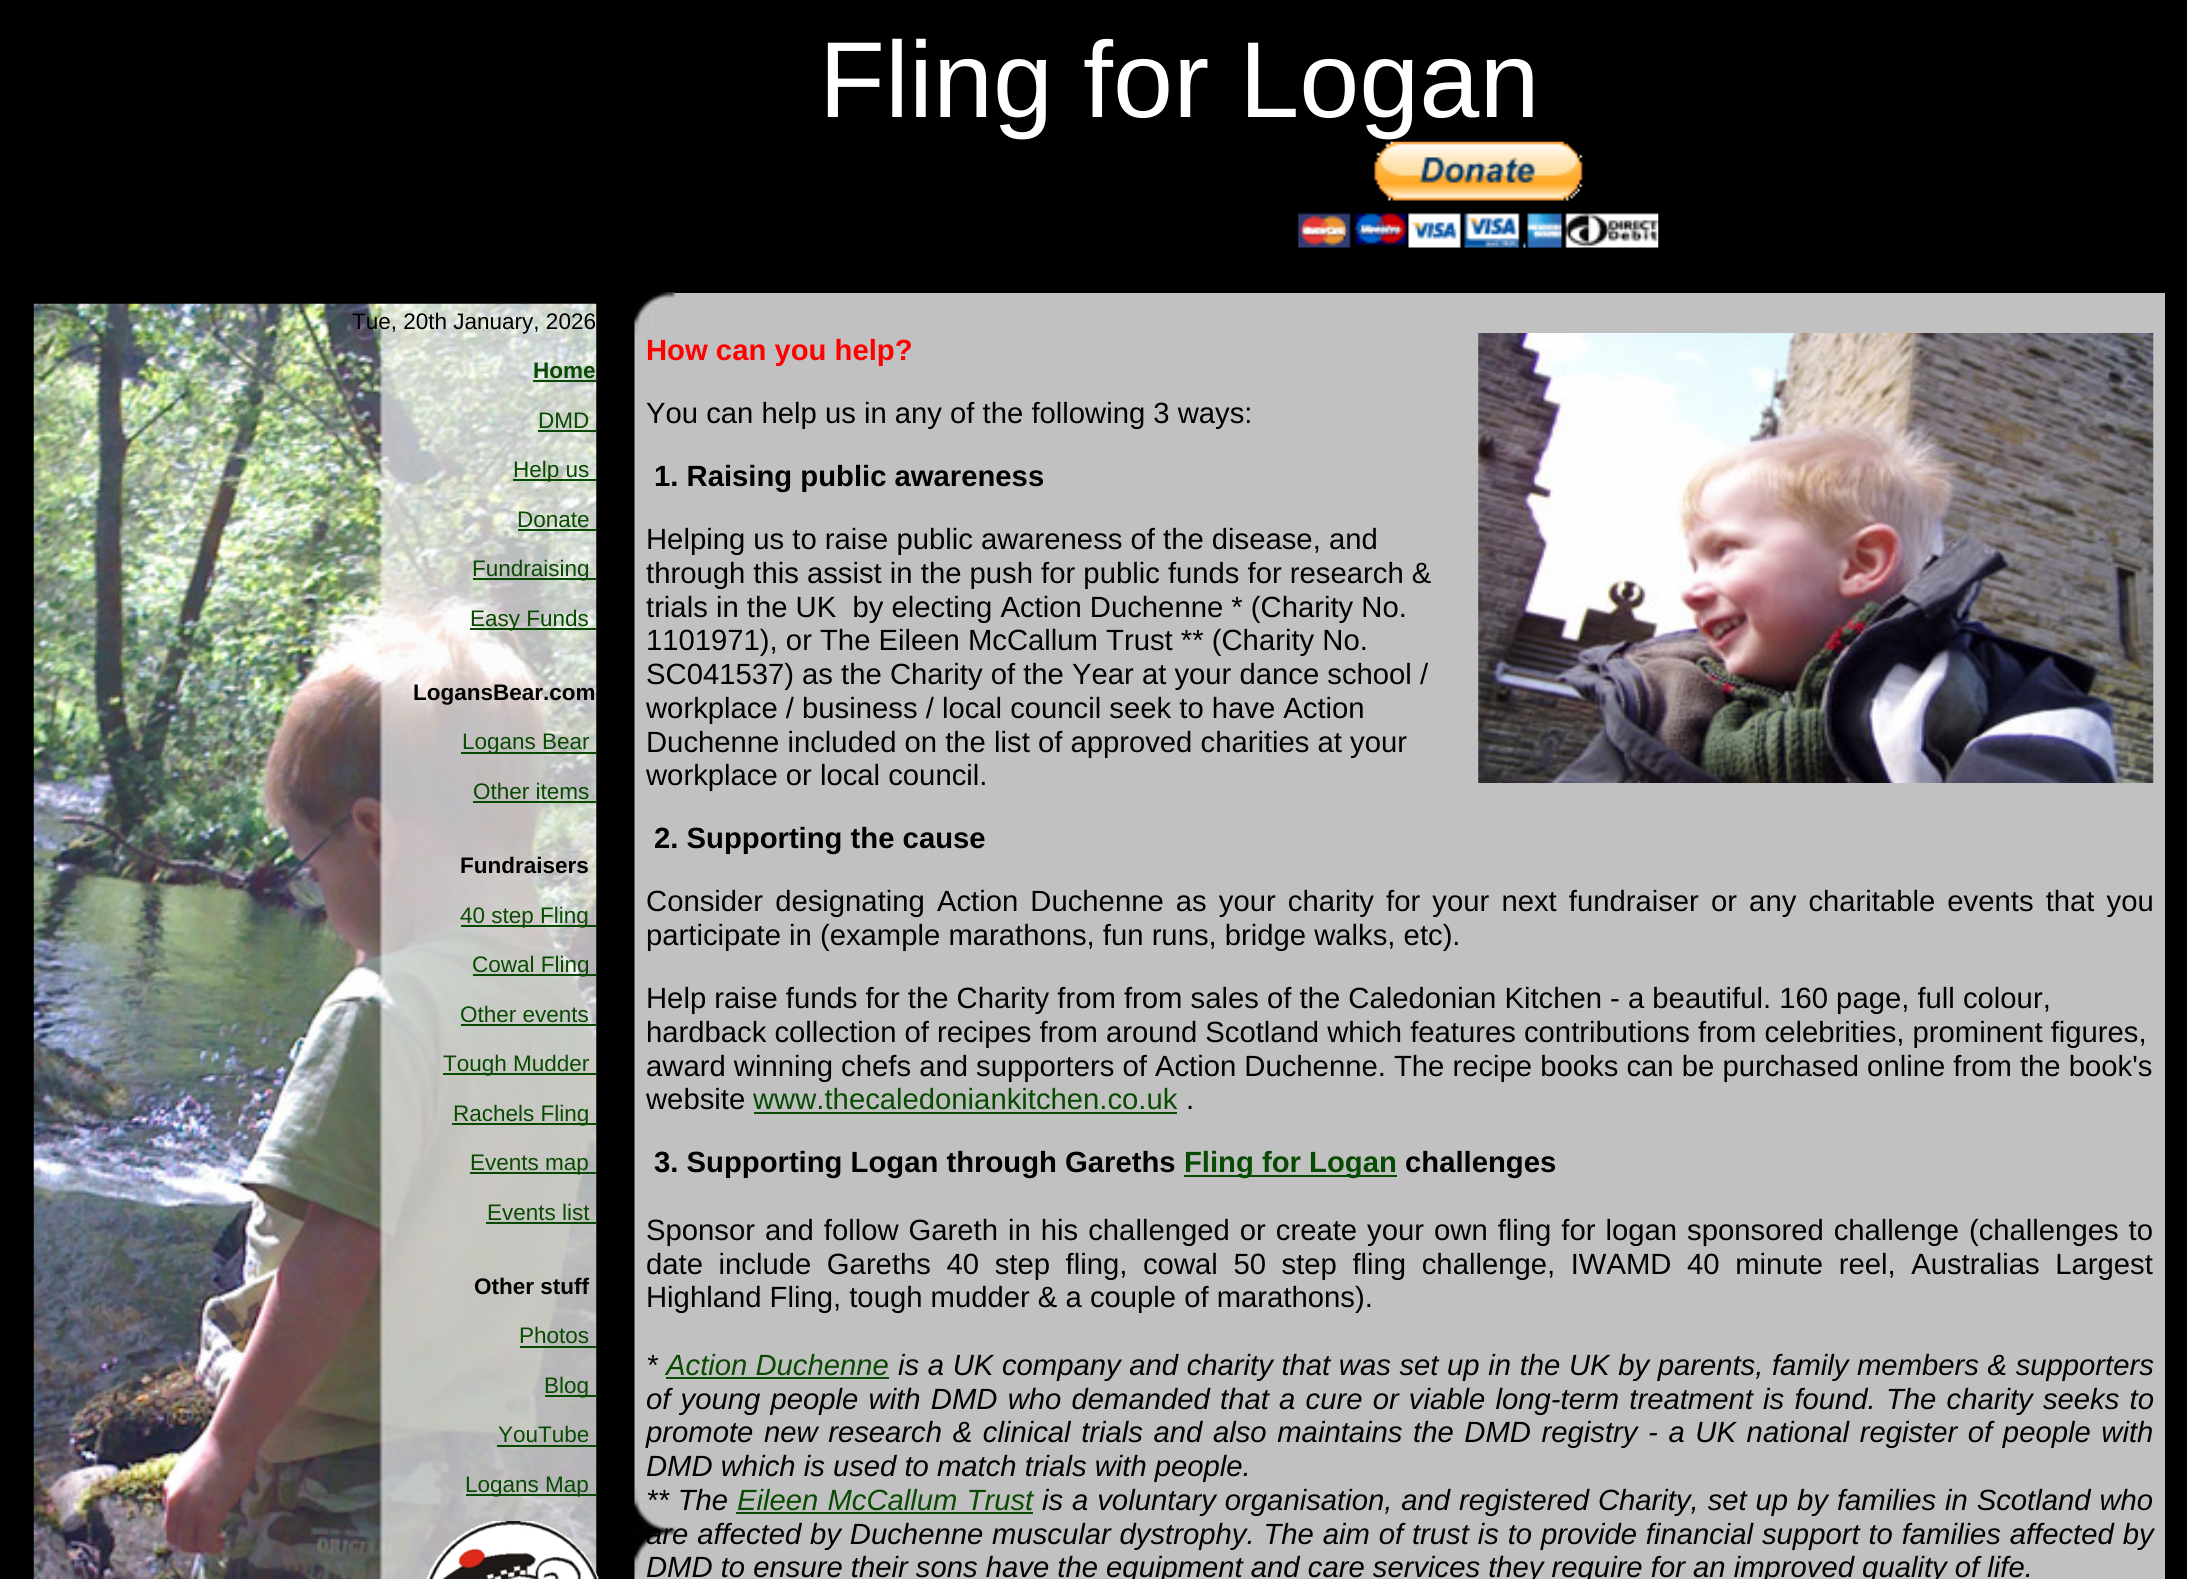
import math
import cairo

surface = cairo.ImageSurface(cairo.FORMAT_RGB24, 2187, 1579)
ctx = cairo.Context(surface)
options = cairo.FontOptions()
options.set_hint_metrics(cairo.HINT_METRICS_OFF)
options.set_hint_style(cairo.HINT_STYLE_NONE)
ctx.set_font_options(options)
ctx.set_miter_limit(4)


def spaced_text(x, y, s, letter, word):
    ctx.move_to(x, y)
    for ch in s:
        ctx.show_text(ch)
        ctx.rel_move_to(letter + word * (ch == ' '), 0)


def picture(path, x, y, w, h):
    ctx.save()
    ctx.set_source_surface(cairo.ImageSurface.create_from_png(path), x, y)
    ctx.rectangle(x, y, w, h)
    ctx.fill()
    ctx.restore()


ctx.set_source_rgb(0, 0, 0)
ctx.paint()
ctx.select_font_face("Liberation Sans")
ctx.set_font_size(108)
ctx.set_source_rgb(1, 1, 1)
ctx.move_to(819, 117)
ctx.show_text("Fling for Logan")
picture("img1.png", 1298, 141, 361, 107)
picture("img2.png", 33, 303, 564, 1276)
ctx.set_font_size(22.5)
ctx.set_source_rgb(0, 0, 0)
ctx.move_to(352, 329)
ctx.show_text("Tue, 20th January, 2026")
ctx.select_font_face("Liberation Sans", cairo.FONT_SLANT_NORMAL, cairo.FONT_WEIGHT_BOLD)
ctx.set_source_rgb(0.035, 0.29, 0.008)
ctx.move_to(533, 378)
ctx.show_text("Home")
ctx.rectangle(533, 380, 63, 2)
ctx.fill()
ctx.select_font_face("Liberation Sans")
ctx.move_to(538, 428)
ctx.show_text("DMD")
ctx.rectangle(538, 430, 58, 2)
ctx.fill()
ctx.rectangle(513, 479, 83, 2)
ctx.fill()
ctx.move_to(513, 477)
ctx.show_text("Help us")
ctx.move_to(517, 527)
ctx.show_text("Donate")
ctx.rectangle(518, 529, 78, 2)
ctx.fill()
ctx.rectangle(473, 578, 123, 2)
ctx.fill()
ctx.move_to(472, 576)
ctx.show_text("Fundraising")
ctx.rectangle(470, 628, 126, 2)
ctx.fill()
ctx.move_to(470, 626)
ctx.show_text("Easy Funds")
ctx.select_font_face("Liberation Sans", cairo.FONT_SLANT_NORMAL, cairo.FONT_WEIGHT_BOLD)
ctx.set_source_rgb(0, 0, 0)
ctx.move_to(413, 700)
ctx.show_text("LogansBear.com")
ctx.set_source_rgb(0.035, 0.29, 0.008)
ctx.rectangle(461, 752, 135, 2)
ctx.fill()
ctx.select_font_face("Liberation Sans")
ctx.move_to(462, 749)
ctx.show_text("Logans Bear")
ctx.move_to(473, 799)
ctx.show_text("Other items")
ctx.rectangle(473, 801, 123, 2)
ctx.fill()
ctx.select_font_face("Liberation Sans", cairo.FONT_SLANT_NORMAL, cairo.FONT_WEIGHT_BOLD)
ctx.set_source_rgb(0, 0, 0)
ctx.move_to(460, 873)
ctx.show_text("Fundraisers")
ctx.set_source_rgb(0.035, 0.29, 0.008)
ctx.rectangle(461, 925, 135, 2)
ctx.fill()
ctx.select_font_face("Liberation Sans")
ctx.move_to(460, 923)
ctx.show_text("40 step Fling")
ctx.rectangle(473, 974, 123, 2)
ctx.fill()
ctx.move_to(472, 972)
ctx.show_text("Cowal Fling")
ctx.move_to(460, 1022)
ctx.show_text("Other events")
ctx.rectangle(461, 1024, 135, 2)
ctx.fill()
ctx.rectangle(443, 1073, 153, 2)
ctx.fill()
ctx.move_to(443, 1071)
ctx.show_text("Tough Mudder")
ctx.rectangle(452, 1123, 144, 2)
ctx.fill()
ctx.move_to(453, 1121)
ctx.show_text("Rachels Fling")
ctx.rectangle(470, 1172, 126, 2)
ctx.fill()
ctx.move_to(470, 1170)
ctx.show_text("Events map")
ctx.move_to(487, 1220)
ctx.show_text("Events list")
ctx.rectangle(486, 1222, 110, 2)
ctx.fill()
ctx.select_font_face("Liberation Sans", cairo.FONT_SLANT_NORMAL, cairo.FONT_WEIGHT_BOLD)
ctx.set_source_rgb(0, 0, 0)
ctx.move_to(474, 1294)
ctx.show_text("Other stuff")
ctx.select_font_face("Liberation Sans")
ctx.set_source_rgb(0.035, 0.29, 0.008)
ctx.move_to(519, 1343)
ctx.show_text("Photos")
ctx.rectangle(520, 1346, 76, 2)
ctx.fill()
ctx.rectangle(545, 1395, 51, 2)
ctx.fill()
ctx.move_to(544, 1393)
ctx.show_text("Blog")
ctx.move_to(498, 1442)
ctx.show_text("YouTube")
ctx.rectangle(497, 1445, 99, 2)
ctx.fill()
ctx.rectangle(466, 1494, 130, 2)
ctx.fill()
ctx.move_to(465, 1492)
ctx.show_text("Logans Map")
picture("img3.png", 426, 1521, 173, 58)
ctx.set_source_rgb(0.757, 0.757, 0.757)
ctx.rectangle(675, 293, 1490, 1286)
ctx.fill()
picture("img4.png", 634, 292, 41, 1287)
ctx.select_font_face("Liberation Sans", cairo.FONT_SLANT_NORMAL, cairo.FONT_WEIGHT_BOLD)
ctx.set_font_size(29.25)
ctx.set_source_rgb(1, 0, 0)
ctx.move_to(646, 360)
ctx.show_text("How can you help?")
picture("img5.png", 1478, 333, 676, 450)
ctx.select_font_face("Liberation Sans")
ctx.set_source_rgb(0, 0, 0)
ctx.move_to(646, 423)
ctx.show_text("You can help us in any of the following 3 ways:")
ctx.select_font_face("Liberation Sans", cairo.FONT_SLANT_NORMAL, cairo.FONT_WEIGHT_BOLD)
ctx.move_to(654, 486)
ctx.show_text("1. Raising public awareness")
ctx.select_font_face("Liberation Sans")
ctx.move_to(646, 549)
ctx.show_text("Helping us to raise public awareness of the disease, and")
ctx.move_to(646, 583)
ctx.show_text("through this assist in the push for public funds for research &")
ctx.move_to(646, 617)
ctx.show_text("trials in the UK  by electing Action Duchenne * (Charity No.")
ctx.move_to(646, 650)
ctx.show_text("1101971), or The Eileen McCallum Trust ** (Charity No.")
ctx.move_to(646, 684)
ctx.show_text("SC041537) as the Charity of the Year at your dance school /")
ctx.move_to(646, 718)
ctx.show_text("workplace / business / local council seek to have Action")
ctx.move_to(646, 752)
ctx.show_text("Duchenne included on the list of approved charities at your")
ctx.move_to(646, 785)
ctx.show_text("workplace or local council.")
ctx.select_font_face("Liberation Sans", cairo.FONT_SLANT_NORMAL, cairo.FONT_WEIGHT_BOLD)
ctx.move_to(654, 848)
ctx.show_text("2. Supporting the cause")
ctx.select_font_face("Liberation Sans")
spaced_text(646, 911, "Consider designating Action Duchenne as your charity for your next fundraiser or any charitable events that you", 0, 4)
ctx.move_to(646, 945)
ctx.show_text("participate in (example marathons, fun runs, bridge walks, etc).")
ctx.move_to(646, 1008)
ctx.show_text("Help raise funds for the Charity from from sales of the Caledonian Kitchen - a beautiful. 160 page, full colour,")
ctx.move_to(646, 1042)
ctx.show_text("hardback collection of recipes from around Scotland which features contributions from celebrities, prominent figures,")
ctx.move_to(646, 1076)
ctx.show_text("award winning chefs and supporters of Action Duchenne. The recipe books can be purchased online from the book's")
ctx.move_to(646, 1109)
ctx.show_text("website")
ctx.set_source_rgb(0.035, 0.29, 0.008)
ctx.move_to(753, 1109)
ctx.show_text("www.thecaledoniankitchen.co.uk")
ctx.rectangle(754, 1112, 423, 2)
ctx.fill()
ctx.set_source_rgb(0, 0, 0)
ctx.move_to(1186, 1109)
ctx.show_text(".")
ctx.select_font_face("Liberation Sans", cairo.FONT_SLANT_NORMAL, cairo.FONT_WEIGHT_BOLD)
ctx.move_to(654, 1172)
ctx.show_text("3. Supporting Logan through Gareths")
ctx.set_source_rgb(0.035, 0.29, 0.008)
ctx.rectangle(1184, 1175, 213, 2)
ctx.fill()
ctx.move_to(1184, 1172)
ctx.show_text("Fling for Logan")
ctx.set_source_rgb(0, 0, 0)
ctx.move_to(1405, 1172)
ctx.show_text("challenges")
ctx.select_font_face("Liberation Sans")
spaced_text(646, 1240, "Sponsor and follow Gareth in his challenged or create your own fling for logan sponsored challenge (challenges to", 0, 1.9)
spaced_text(646, 1274, "date include Gareths 40 step fling, cowal 50 step fling challenge, IWAMD 40 minute reel, Australias Largest", 0, 7.5)
ctx.move_to(646, 1307)
ctx.show_text("Highland Fling, tough mudder & a couple of marathons).")
ctx.select_font_face("Liberation Sans", cairo.FONT_SLANT_ITALIC)
ctx.move_to(646, 1375)
ctx.show_text("*")
ctx.set_source_rgb(0.035, 0.29, 0.008)
ctx.move_to(666, 1375)
ctx.show_text("Action Duchenne")
ctx.rectangle(666, 1377, 223, 2)
ctx.fill()
ctx.set_source_rgb(0, 0, 0)
spaced_text(898, 1375, "is a UK company and charity that was set up in the UK by parents, family members & supporters", 0, 0.5)
spaced_text(646, 1409, "of young people with DMD who demanded that a cure or viable long-term treatment is found. The charity seeks to", 0, 2.1)
spaced_text(646, 1442, "promote new research & clinical trials and also maintains the DMD registry - a UK national register of people with", 0, 2.5)
ctx.move_to(646, 1476)
ctx.show_text("DMD which is used to match trials with people.")
spaced_text(646, 1510, "** The", 0, 0.8)
ctx.set_source_rgb(0.035, 0.29, 0.008)
spaced_text(737, 1510, "Eileen McCallum Trust", 0, 1)
ctx.rectangle(736, 1512, 297, 2)
ctx.fill()
ctx.set_source_rgb(0, 0, 0)
spaced_text(1042, 1510, "is a voluntary organisation, and registered Charity, set up by families in Scotland who", 0, 0.8)
spaced_text(646, 1544, "are affected by Duchenne muscular dystrophy. The aim of trust is to provide financial support to families affected by", 0, 0.75)
ctx.move_to(646, 1577)
ctx.show_text("DMD to ensure their sons have the equipment and care services they require for an improved quality of life.")
surface.write_to_png("page.png")
